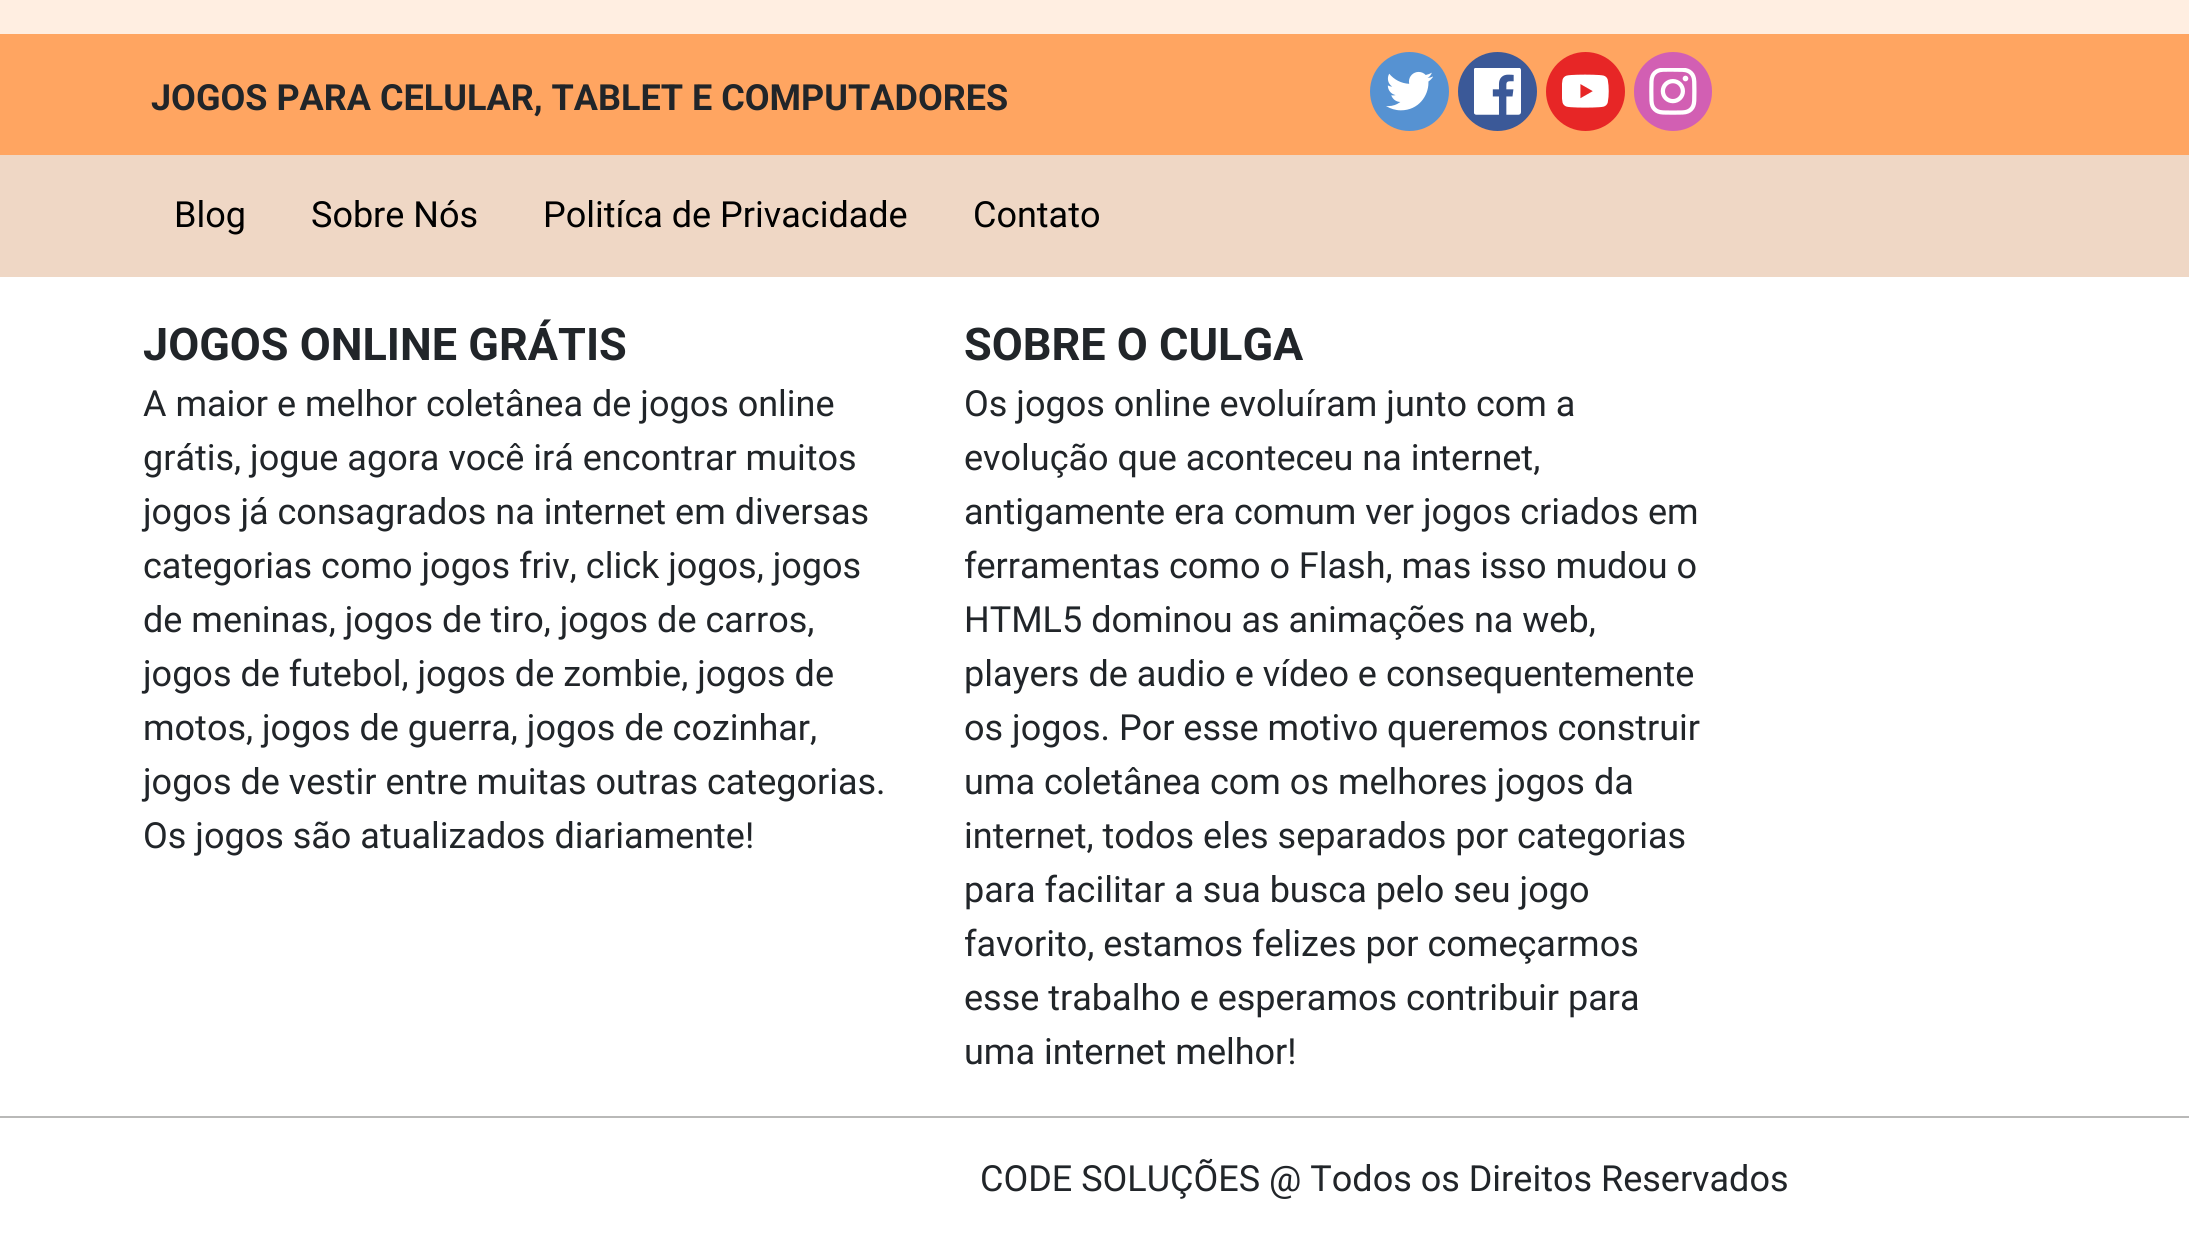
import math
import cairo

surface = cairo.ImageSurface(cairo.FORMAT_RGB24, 2189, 1241)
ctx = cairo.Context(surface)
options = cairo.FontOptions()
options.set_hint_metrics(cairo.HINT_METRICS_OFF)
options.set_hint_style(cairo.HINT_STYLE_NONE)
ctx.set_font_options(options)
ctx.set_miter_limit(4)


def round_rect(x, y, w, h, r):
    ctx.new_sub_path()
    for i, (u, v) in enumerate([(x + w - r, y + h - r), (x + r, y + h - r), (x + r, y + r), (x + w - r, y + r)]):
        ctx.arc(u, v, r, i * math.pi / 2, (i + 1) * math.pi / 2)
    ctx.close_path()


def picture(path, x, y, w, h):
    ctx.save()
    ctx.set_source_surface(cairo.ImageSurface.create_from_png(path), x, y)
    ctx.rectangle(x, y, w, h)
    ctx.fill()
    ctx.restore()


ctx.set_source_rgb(1, 0.933, 0.882)
ctx.paint()
ctx.set_source_rgb(1, 1, 1)
ctx.rectangle(0, 277, 2189, 964)
ctx.fill()
ctx.set_source_rgb(1, 0.647, 0.38)
ctx.rectangle(0, 34, 2189, 121)
ctx.fill()
ctx.select_font_face("Roboto", cairo.FONT_SLANT_NORMAL, cairo.FONT_WEIGHT_BOLD)
ctx.set_font_size(36)
ctx.set_source_rgb(0.129, 0.145, 0.161)
ctx.move_to(151, 110)
ctx.show_text("JOGOS PARA CELULAR, TABLET E COMPUTADORES")
ctx.set_source_rgb(0.337, 0.573, 0.824)
ctx.new_path()
ctx.arc(1409.5, 91.5, 39.5, 0, 2 * math.pi)
ctx.fill()
picture("img1.png", 1386, 71, 47, 40)
ctx.set_source_rgb(0.231, 0.349, 0.596)
ctx.arc(1497.5, 91.5, 39.5, 0, 2 * math.pi)
ctx.fill()
picture("img2.png", 1474, 68, 47, 47)
ctx.set_source_rgb(0.906, 0.149, 0.149)
ctx.arc(1585.5, 91.5, 39.5, 0, 2 * math.pi)
ctx.fill()
picture("img3.png", 1562, 74, 47, 34)
ctx.set_source_rgb(0.824, 0.373, 0.702)
round_rect(1634, 52, 78, 79, 39)
ctx.fill()
picture("img4.png", 1649, 68, 48, 47)
ctx.set_source_rgb(0.937, 0.843, 0.773)
ctx.rectangle(0, 155, 2189, 122)
ctx.fill()
ctx.select_font_face("Roboto")
ctx.set_source_rgb(0, 0, 0)
ctx.move_to(174, 227)
ctx.show_text("Blog")
ctx.move_to(311, 227)
ctx.show_text("Sobre Nós")
ctx.move_to(543, 227)
ctx.show_text("Politíca de Privacidade")
ctx.move_to(973, 227)
ctx.show_text("Contato")
ctx.select_font_face("Roboto", cairo.FONT_SLANT_NORMAL, cairo.FONT_WEIGHT_BOLD)
ctx.set_font_size(45)
ctx.set_source_rgb(0.129, 0.145, 0.161)
ctx.move_to(143, 360)
ctx.show_text("JOGOS ONLINE GRÁTIS")
ctx.select_font_face("Roboto")
ctx.set_font_size(36)
ctx.move_to(143, 416)
ctx.show_text("A maior e melhor coletânea de jogos online")
ctx.move_to(143, 470)
ctx.show_text("grátis, jogue agora você irá encontrar muitos")
ctx.move_to(143, 524)
ctx.show_text("jogos já consagrados na internet em diversas")
ctx.move_to(143, 578)
ctx.show_text("categorias como jogos friv, click jogos, jogos")
ctx.move_to(143, 632)
ctx.show_text("de meninas, jogos de tiro, jogos de carros,")
ctx.move_to(143, 686)
ctx.show_text("jogos de futebol, jogos de zombie, jogos de")
ctx.move_to(143, 740)
ctx.show_text("motos, jogos de guerra, jogos de cozinhar,")
ctx.move_to(143, 794)
ctx.show_text("jogos de vestir entre muitas outras categorias.")
ctx.move_to(143, 848)
ctx.show_text("Os jogos são atualizados diariamente!")
ctx.select_font_face("Roboto", cairo.FONT_SLANT_NORMAL, cairo.FONT_WEIGHT_BOLD)
ctx.set_font_size(45)
ctx.move_to(964, 360)
ctx.show_text("SOBRE O CULGA")
ctx.select_font_face("Roboto")
ctx.set_font_size(36)
ctx.move_to(964, 416)
ctx.show_text("Os jogos online evoluíram junto com a")
ctx.move_to(964, 470)
ctx.show_text("evolução que aconteceu na internet,")
ctx.move_to(964, 524)
ctx.show_text("antigamente era comum ver jogos criados em")
ctx.move_to(964, 578)
ctx.show_text("ferramentas como o Flash, mas isso mudou o")
ctx.move_to(964, 632)
ctx.show_text("HTML5 dominou as animações na web,")
ctx.move_to(964, 686)
ctx.show_text("players de audio e vídeo e consequentemente")
ctx.move_to(964, 740)
ctx.show_text("os jogos. Por esse motivo queremos construir")
ctx.move_to(964, 794)
ctx.show_text("uma coletânea com os melhores jogos da")
ctx.move_to(964, 848)
ctx.show_text("internet, todos eles separados por categorias")
ctx.move_to(964, 902)
ctx.show_text("para facilitar a sua busca pelo seu jogo")
ctx.move_to(964, 956)
ctx.show_text("favorito, estamos felizes por começarmos")
ctx.move_to(964, 1010)
ctx.show_text("esse trabalho e esperamos contribuir para")
ctx.move_to(964, 1064)
ctx.show_text("uma internet melhor!")
ctx.set_source_rgb(0.725, 0.725, 0.722)
ctx.rectangle(0, 1116, 2189, 2)
ctx.fill()
ctx.set_source_rgb(0.129, 0.145, 0.161)
ctx.move_to(980, 1191)
ctx.show_text("CODE SOLUÇÕES @ Todos os Direitos Reservados")
surface.write_to_png("page.png")
